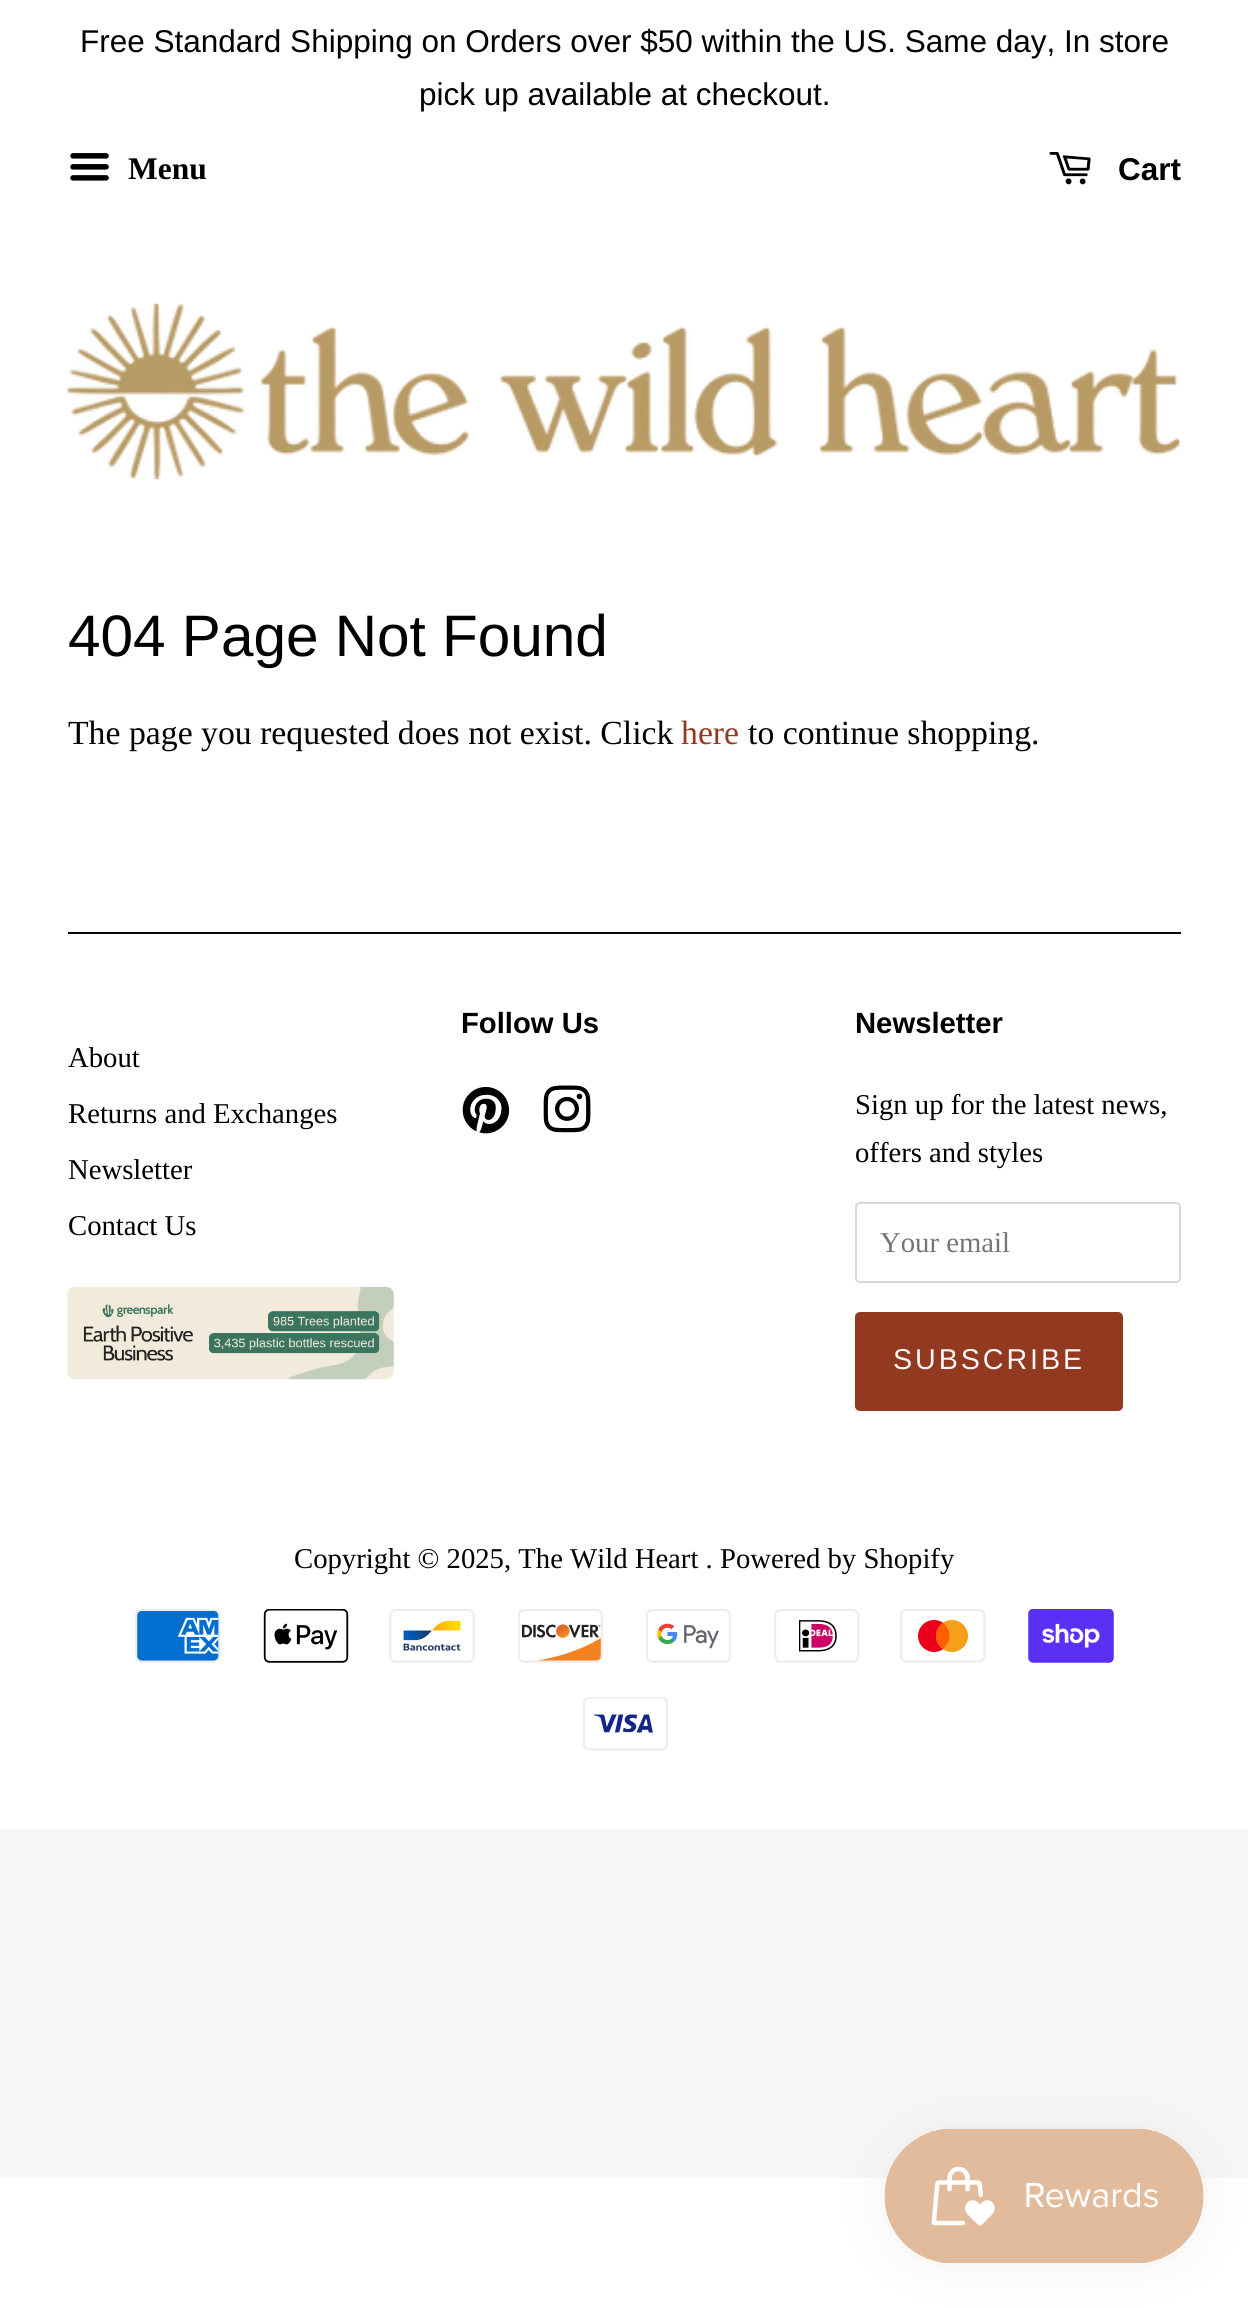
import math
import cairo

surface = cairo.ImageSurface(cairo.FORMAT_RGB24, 1248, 2308)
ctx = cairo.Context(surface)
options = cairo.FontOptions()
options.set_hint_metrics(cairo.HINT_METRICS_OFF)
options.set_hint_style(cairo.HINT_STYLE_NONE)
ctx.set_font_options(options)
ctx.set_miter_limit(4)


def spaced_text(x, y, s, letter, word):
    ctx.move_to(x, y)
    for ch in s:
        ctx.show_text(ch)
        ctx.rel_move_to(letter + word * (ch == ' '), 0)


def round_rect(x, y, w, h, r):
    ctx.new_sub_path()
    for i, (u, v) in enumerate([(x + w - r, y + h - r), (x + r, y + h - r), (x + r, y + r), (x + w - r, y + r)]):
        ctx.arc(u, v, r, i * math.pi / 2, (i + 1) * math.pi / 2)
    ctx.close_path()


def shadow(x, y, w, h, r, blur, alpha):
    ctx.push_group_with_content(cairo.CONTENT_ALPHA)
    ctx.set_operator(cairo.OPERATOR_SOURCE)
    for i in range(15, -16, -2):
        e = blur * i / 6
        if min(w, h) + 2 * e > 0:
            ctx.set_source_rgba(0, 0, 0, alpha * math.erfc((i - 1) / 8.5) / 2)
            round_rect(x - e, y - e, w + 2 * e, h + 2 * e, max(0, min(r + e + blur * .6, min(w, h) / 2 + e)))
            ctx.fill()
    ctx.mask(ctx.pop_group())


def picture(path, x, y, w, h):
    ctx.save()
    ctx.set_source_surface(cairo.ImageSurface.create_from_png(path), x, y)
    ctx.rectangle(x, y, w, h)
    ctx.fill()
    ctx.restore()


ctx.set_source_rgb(1, 1, 1)
ctx.paint()
ctx.select_font_face("Liberation Sans")
ctx.set_font_size(31.5)
ctx.set_source_rgb(0, 0, 0)
ctx.move_to(80, 52)
ctx.show_text("Free Standard Shipping on Orders over $50 within the US. Same day, In store")
ctx.move_to(419, 105)
ctx.show_text("pick up available at checkout.")
picture("img1.png", 70, 153, 39, 28)
ctx.select_font_face("Liberation Serif", cairo.FONT_SLANT_NORMAL, cairo.FONT_WEIGHT_BOLD)
ctx.move_to(128, 179)
ctx.show_text("Menu")
picture("img2.png", 1049, 152, 42, 33)
ctx.select_font_face("Liberation Sans", cairo.FONT_SLANT_NORMAL, cairo.FONT_WEIGHT_BOLD)
ctx.move_to(1118, 180)
ctx.show_text("Cart")
picture("img3.png", 67, 303, 1114, 177)
ctx.select_font_face("Liberation Sans")
ctx.set_font_size(58.5)
ctx.move_to(68, 656)
ctx.show_text("404 Page Not Found")
ctx.select_font_face("Liberation Serif")
ctx.set_font_size(33.75)
ctx.move_to(68, 744)
ctx.show_text("The page you requested does not exist. Click")
ctx.set_source_rgb(0.576, 0.224, 0.122)
ctx.move_to(681, 744)
ctx.show_text("here")
ctx.set_source_rgb(0, 0, 0)
ctx.move_to(748, 744)
ctx.show_text("to continue shopping.")
ctx.rectangle(68, 932, 1113, 2)
ctx.fill()
ctx.set_font_size(28.7)
ctx.move_to(68, 1067)
ctx.show_text("About")
ctx.move_to(68, 1123)
ctx.show_text("Returns and Exchanges")
ctx.move_to(68, 1179)
ctx.show_text("Newsletter")
ctx.move_to(68, 1235)
ctx.show_text("Contact Us")
picture("img4.png", 67, 1287, 327, 93)
ctx.select_font_face("Liberation Sans", cairo.FONT_SLANT_NORMAL, cairo.FONT_WEIGHT_BOLD)
ctx.set_font_size(29.25)
ctx.move_to(461, 1033)
ctx.show_text("Follow Us")
picture("img5.png", 462, 1087, 48, 47)
picture("img6.png", 543, 1085, 48, 48)
ctx.move_to(855, 1033)
ctx.show_text("Newsletter")
ctx.select_font_face("Liberation Serif")
ctx.set_font_size(28.7)
ctx.move_to(855, 1114)
ctx.show_text("Sign up for the latest news,")
ctx.move_to(855, 1162)
ctx.show_text("offers and styles")
round_rect(856, 1203, 324, 79, 4)
ctx.set_source_rgb(0.851, 0.851, 0.851)
ctx.stroke()
ctx.set_source_rgb(0.459, 0.459, 0.459)
ctx.move_to(880, 1252)
ctx.show_text("Your email")
ctx.set_source_rgb(0.576, 0.224, 0.122)
round_rect(855, 1312, 268, 99, 5)
ctx.fill()
ctx.select_font_face("Liberation Sans")
ctx.set_source_rgb(0.965, 0.965, 0.965)
spaced_text(893, 1369, "SUBSCRIBE", 2.9, 0)
ctx.select_font_face("Liberation Serif")
ctx.set_source_rgb(0, 0, 0)
ctx.move_to(294, 1568)
ctx.show_text("Copyright © 2025, The Wild Heart . Powered by Shopify")
picture("img7.png", 135, 1609, 86, 54)
picture("img8.png", 263, 1609, 86, 54)
picture("img9.png", 389, 1609, 86, 54)
picture("img10.png", 518, 1609, 85, 54)
picture("img11.png", 646, 1609, 85, 54)
picture("img12.png", 774, 1609, 86, 54)
picture("img13.png", 900, 1609, 86, 54)
picture("img14.png", 1028, 1609, 86, 54)
picture("img15.png", 583, 1697, 85, 54)
ctx.set_source_rgb(0.965, 0.965, 0.965)
ctx.rectangle(0, 1829, 1248, 349)
ctx.fill()
ctx.set_source_rgb(0, 0, 0)
shadow(884, 2129, 320, 135, 67.5, 28, 0.05)
picture("img16.png", 884, 2128, 320, 136)
surface.write_to_png("page.png")
